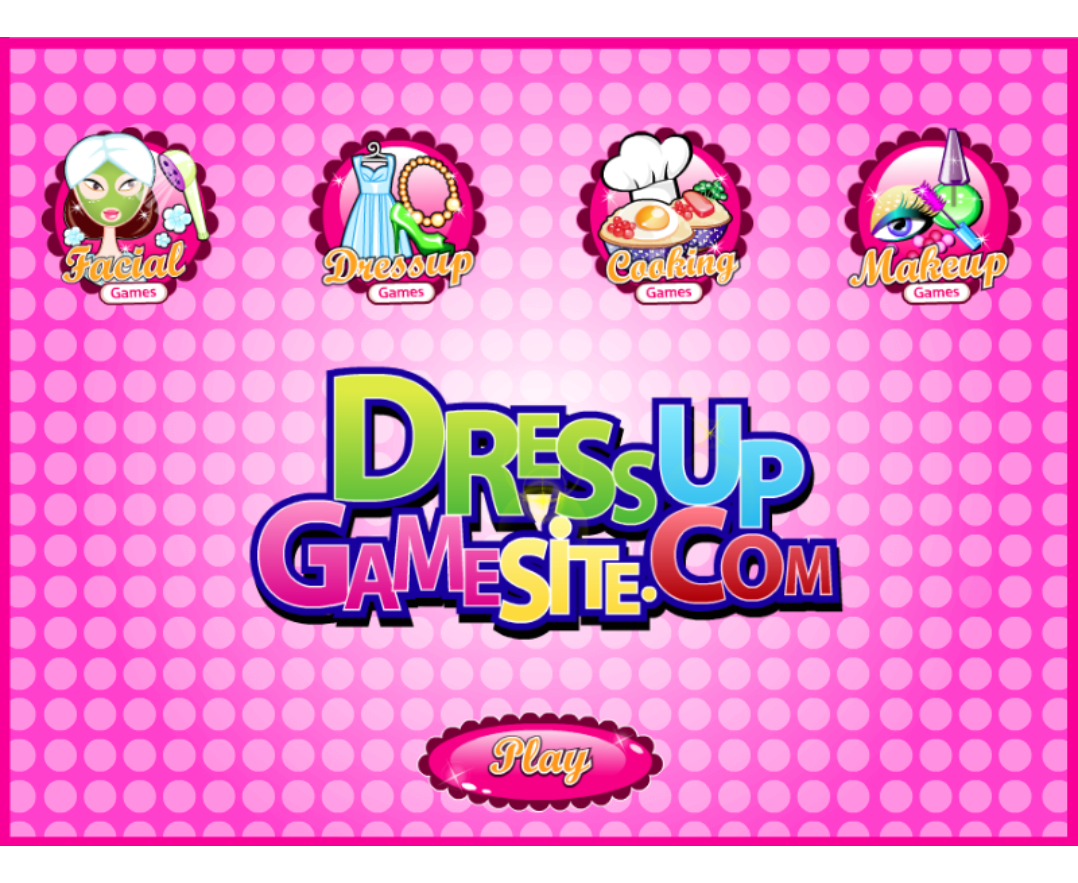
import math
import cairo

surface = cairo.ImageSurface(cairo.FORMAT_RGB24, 1078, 883)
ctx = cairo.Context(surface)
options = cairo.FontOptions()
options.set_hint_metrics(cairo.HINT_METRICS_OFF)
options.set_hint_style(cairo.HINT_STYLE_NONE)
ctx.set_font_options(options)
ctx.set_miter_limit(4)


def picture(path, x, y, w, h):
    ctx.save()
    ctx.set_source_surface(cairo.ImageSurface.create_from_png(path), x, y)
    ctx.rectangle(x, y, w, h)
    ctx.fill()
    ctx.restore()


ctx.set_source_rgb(1, 1, 1)
ctx.paint()
picture("img1.png", 0, 37, 1078, 809)
surface.write_to_png("page.png")
